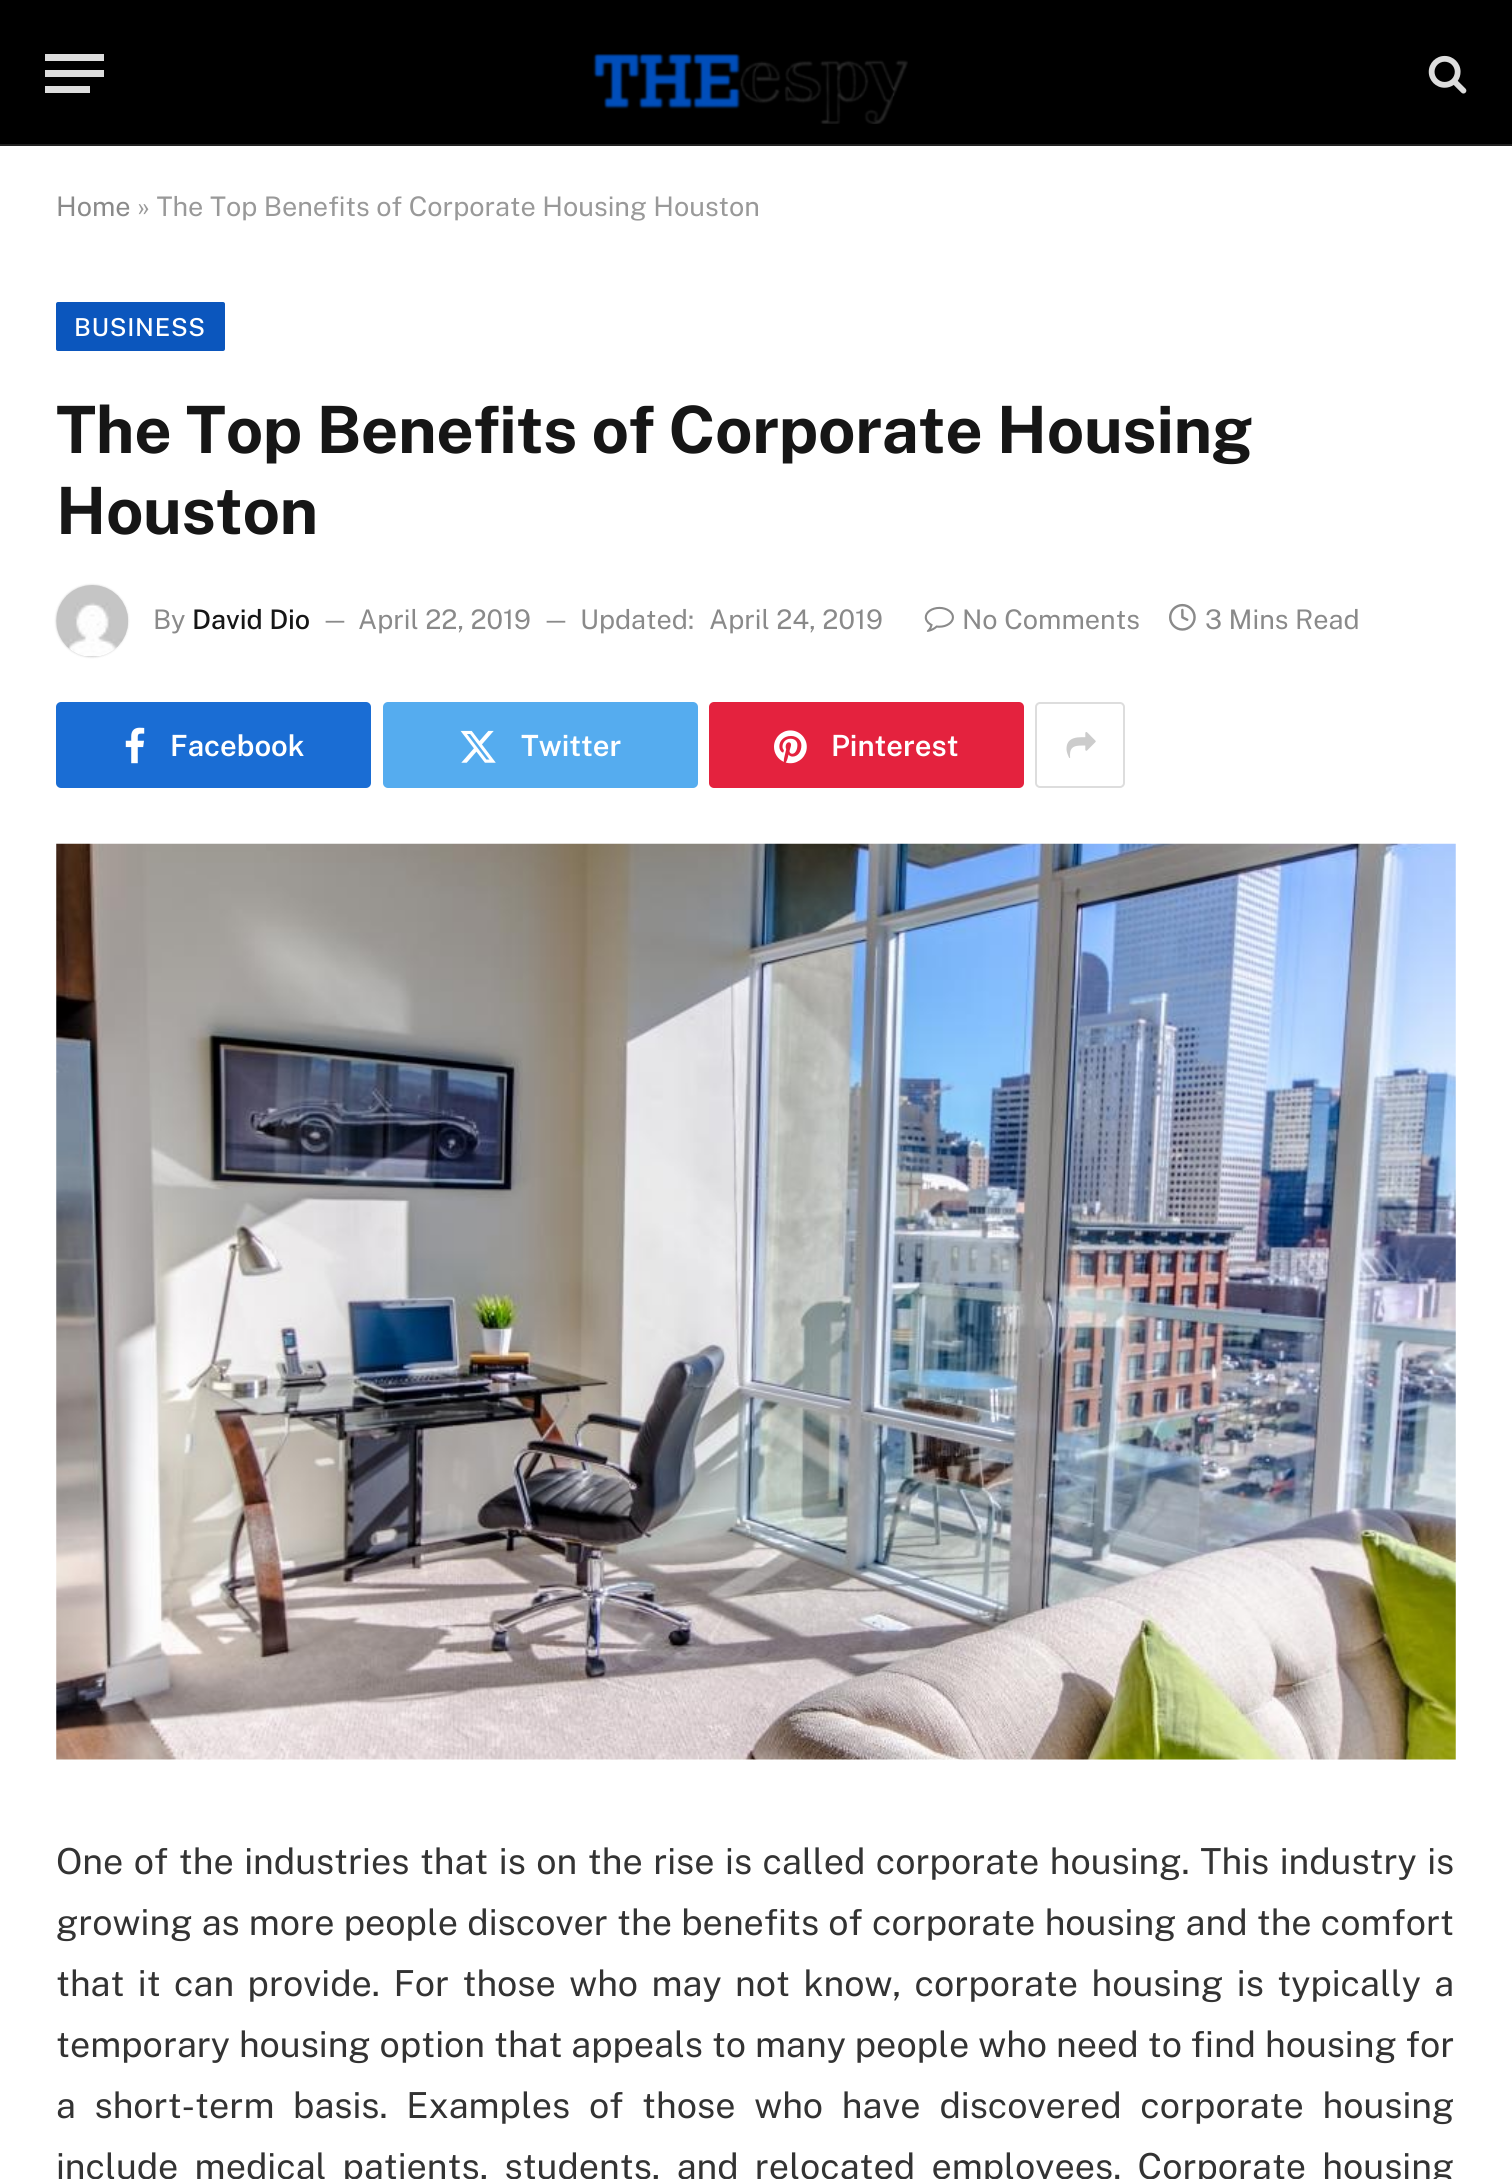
import math
import cairo

surface = cairo.ImageSurface(cairo.FORMAT_RGB24, 1512, 2179)
ctx = cairo.Context(surface)
options = cairo.FontOptions()
options.set_hint_metrics(cairo.HINT_METRICS_OFF)
options.set_hint_style(cairo.HINT_STYLE_NONE)
ctx.set_font_options(options)
ctx.set_miter_limit(4)


def spaced_text(x, y, s, letter, word):
    ctx.move_to(x, y)
    for ch in s:
        ctx.show_text(ch)
        ctx.rel_move_to(letter + word * (ch == ' '), 0)


def round_rect(x, y, w, h, r):
    ctx.new_sub_path()
    for i, (u, v) in enumerate([(x + w - r, y + h - r), (x + r, y + h - r), (x + r, y + r), (x + w - r, y + r)]):
        ctx.arc(u, v, r, i * math.pi / 2, (i + 1) * math.pi / 2)
    ctx.close_path()


def shadow(x, y, w, h, r, blur, alpha):
    ctx.push_group_with_content(cairo.CONTENT_ALPHA)
    ctx.set_operator(cairo.OPERATOR_SOURCE)
    for i in range(15, -16, -2):
        e = blur * i / 6
        if min(w, h) + 2 * e > 0:
            ctx.set_source_rgba(0, 0, 0, alpha * math.erfc((i - 1) / 8.5) / 2)
            round_rect(x - e, y - e, w + 2 * e, h + 2 * e, max(0, min(r + e + blur * .6, min(w, h) / 2 + e)))
            ctx.fill()
    ctx.mask(ctx.pop_group())


def picture(path, x, y, w, h):
    ctx.save()
    ctx.set_source_surface(cairo.ImageSurface.create_from_png(path), x, y)
    ctx.rectangle(x, y, w, h)
    ctx.fill()
    ctx.restore()


ctx.set_source_rgb(1, 1, 1)
ctx.paint()
ctx.set_source_rgb(0, 0, 0)
ctx.rectangle(0, 0, 1512, 144)
ctx.fill()
ctx.set_source_rgb(0.133, 0.133, 0.133)
ctx.rectangle(0, 144, 1512, 2)
ctx.fill()
ctx.set_source_rgb(0.867, 0.867, 0.867)
ctx.rectangle(45, 86, 45, 7)
ctx.fill()
ctx.rectangle(45, 54, 59, 7)
ctx.fill()
ctx.rectangle(45, 70, 59, 7)
ctx.fill()
picture("img1.png", 593, 53, 315, 71)
picture("img2.png", 1428, 55, 39, 39)
ctx.select_font_face("Public Sans")
ctx.set_font_size(27)
ctx.set_source_rgb(0.541, 0.541, 0.541)
ctx.move_to(56, 216)
ctx.show_text("Home")
ctx.set_source_rgb(0.6, 0.6, 0.6)
ctx.move_to(137, 216)
ctx.show_text("» The Top Benefits of Corporate Housing Houston")
ctx.set_source_rgb(0.043, 0.337, 0.741)
round_rect(56, 302, 169, 49, 2)
ctx.fill()
ctx.select_font_face("Public Sans Medium")
ctx.set_font_size(24.75)
ctx.set_source_rgb(1, 1, 1)
spaced_text(74, 336, "BUSINESS", 0.75, 0)
ctx.select_font_face("Public Sans", cairo.FONT_SLANT_NORMAL, cairo.FONT_WEIGHT_BOLD)
ctx.set_font_size(65.25)
ctx.set_source_rgb(0.086, 0.086, 0.086)
spaced_text(56, 453, "The Top Benefits of Corporate Housing", -0.35, 0)
spaced_text(56, 534, "Houston", -0.35, 0)
ctx.set_source_rgb(0, 0, 0)
shadow(56, 585, 72, 72, 36, 1, 0.2)
picture("img3.png", 56, 585, 72, 71)
ctx.select_font_face("Public Sans")
ctx.set_font_size(27)
ctx.set_source_rgb(0.541, 0.541, 0.541)
ctx.move_to(153, 629)
ctx.show_text("By")
ctx.select_font_face("Public Sans Medium")
ctx.set_source_rgb(0.086, 0.086, 0.086)
ctx.move_to(192, 629)
ctx.show_text("David Dio")
ctx.select_font_face("Public Sans")
ctx.set_font_size(25)
ctx.set_source_rgb(0.541, 0.541, 0.541)
ctx.move_to(321, 628)
ctx.show_text("—")
ctx.set_font_size(27)
ctx.move_to(358, 629)
ctx.show_text("April 22, 2019")
ctx.set_font_size(25)
ctx.move_to(542, 628)
ctx.show_text("—")
ctx.set_font_size(27)
ctx.move_to(580, 629)
ctx.show_text("Updated:")
ctx.move_to(709, 629)
ctx.show_text("April 24, 2019")
picture("img4.png", 924, 606, 30, 26)
ctx.move_to(962, 629)
ctx.show_text("No Comments")
picture("img5.png", 1169, 603, 27, 28)
ctx.move_to(1205, 629)
ctx.show_text("3 Mins Read")
ctx.set_source_rgb(0.102, 0.427, 0.831)
round_rect(56, 702, 315, 86, 5)
ctx.fill()
picture("img6.png", 125, 727, 20, 37)
ctx.select_font_face("Public Sans SemiBold")
ctx.set_font_size(29.25)
ctx.set_source_rgb(1, 1, 1)
ctx.move_to(170, 756)
ctx.show_text("Facebook")
ctx.set_source_rgb(0.333, 0.675, 0.937)
round_rect(383, 702, 315, 86, 5)
ctx.fill()
picture("img7.png", 460, 730, 36, 33)
ctx.set_source_rgb(1, 1, 1)
ctx.move_to(521, 756)
ctx.show_text("Twitter")
ctx.set_source_rgb(0.894, 0.133, 0.243)
round_rect(709, 702, 315, 86, 5)
ctx.fill()
picture("img8.png", 774, 730, 33, 34)
ctx.set_source_rgb(1, 1, 1)
ctx.move_to(831, 756)
ctx.show_text("Pinterest")
round_rect(1036, 703, 88, 84, 4)
ctx.set_source_rgb(0.867, 0.867, 0.867)
ctx.stroke()
picture("img9.png", 1066, 732, 30, 26)
picture("img10.png", 56, 843, 1400, 917)
ctx.select_font_face("Public Sans")
ctx.set_font_size(35.85)
ctx.set_source_rgb(0.2, 0.2, 0.2)
spaced_text(56, 1874, "One of the industries that is on the rise is called corporate housing. This industry is", 0, 1.8)
spaced_text(56, 1935, "growing as more people discover the benefits of corporate housing and the comfort", 0, 0.5)
spaced_text(56, 1996, "that it can provide. For those who may not know, corporate housing is typically a", 0, 4.75)
spaced_text(56, 2057, "temporary housing option that appeals to many people who need to find housing for", 0, 0.25)
spaced_text(56, 2118, "a short-term basis. Examples of those who have discovered corporate housing", 0, 10)
spaced_text(56, 2179, "include medical patients, students, and relocated employees. Corporate housing", 0, 7.5)
surface.write_to_png("page.png")
